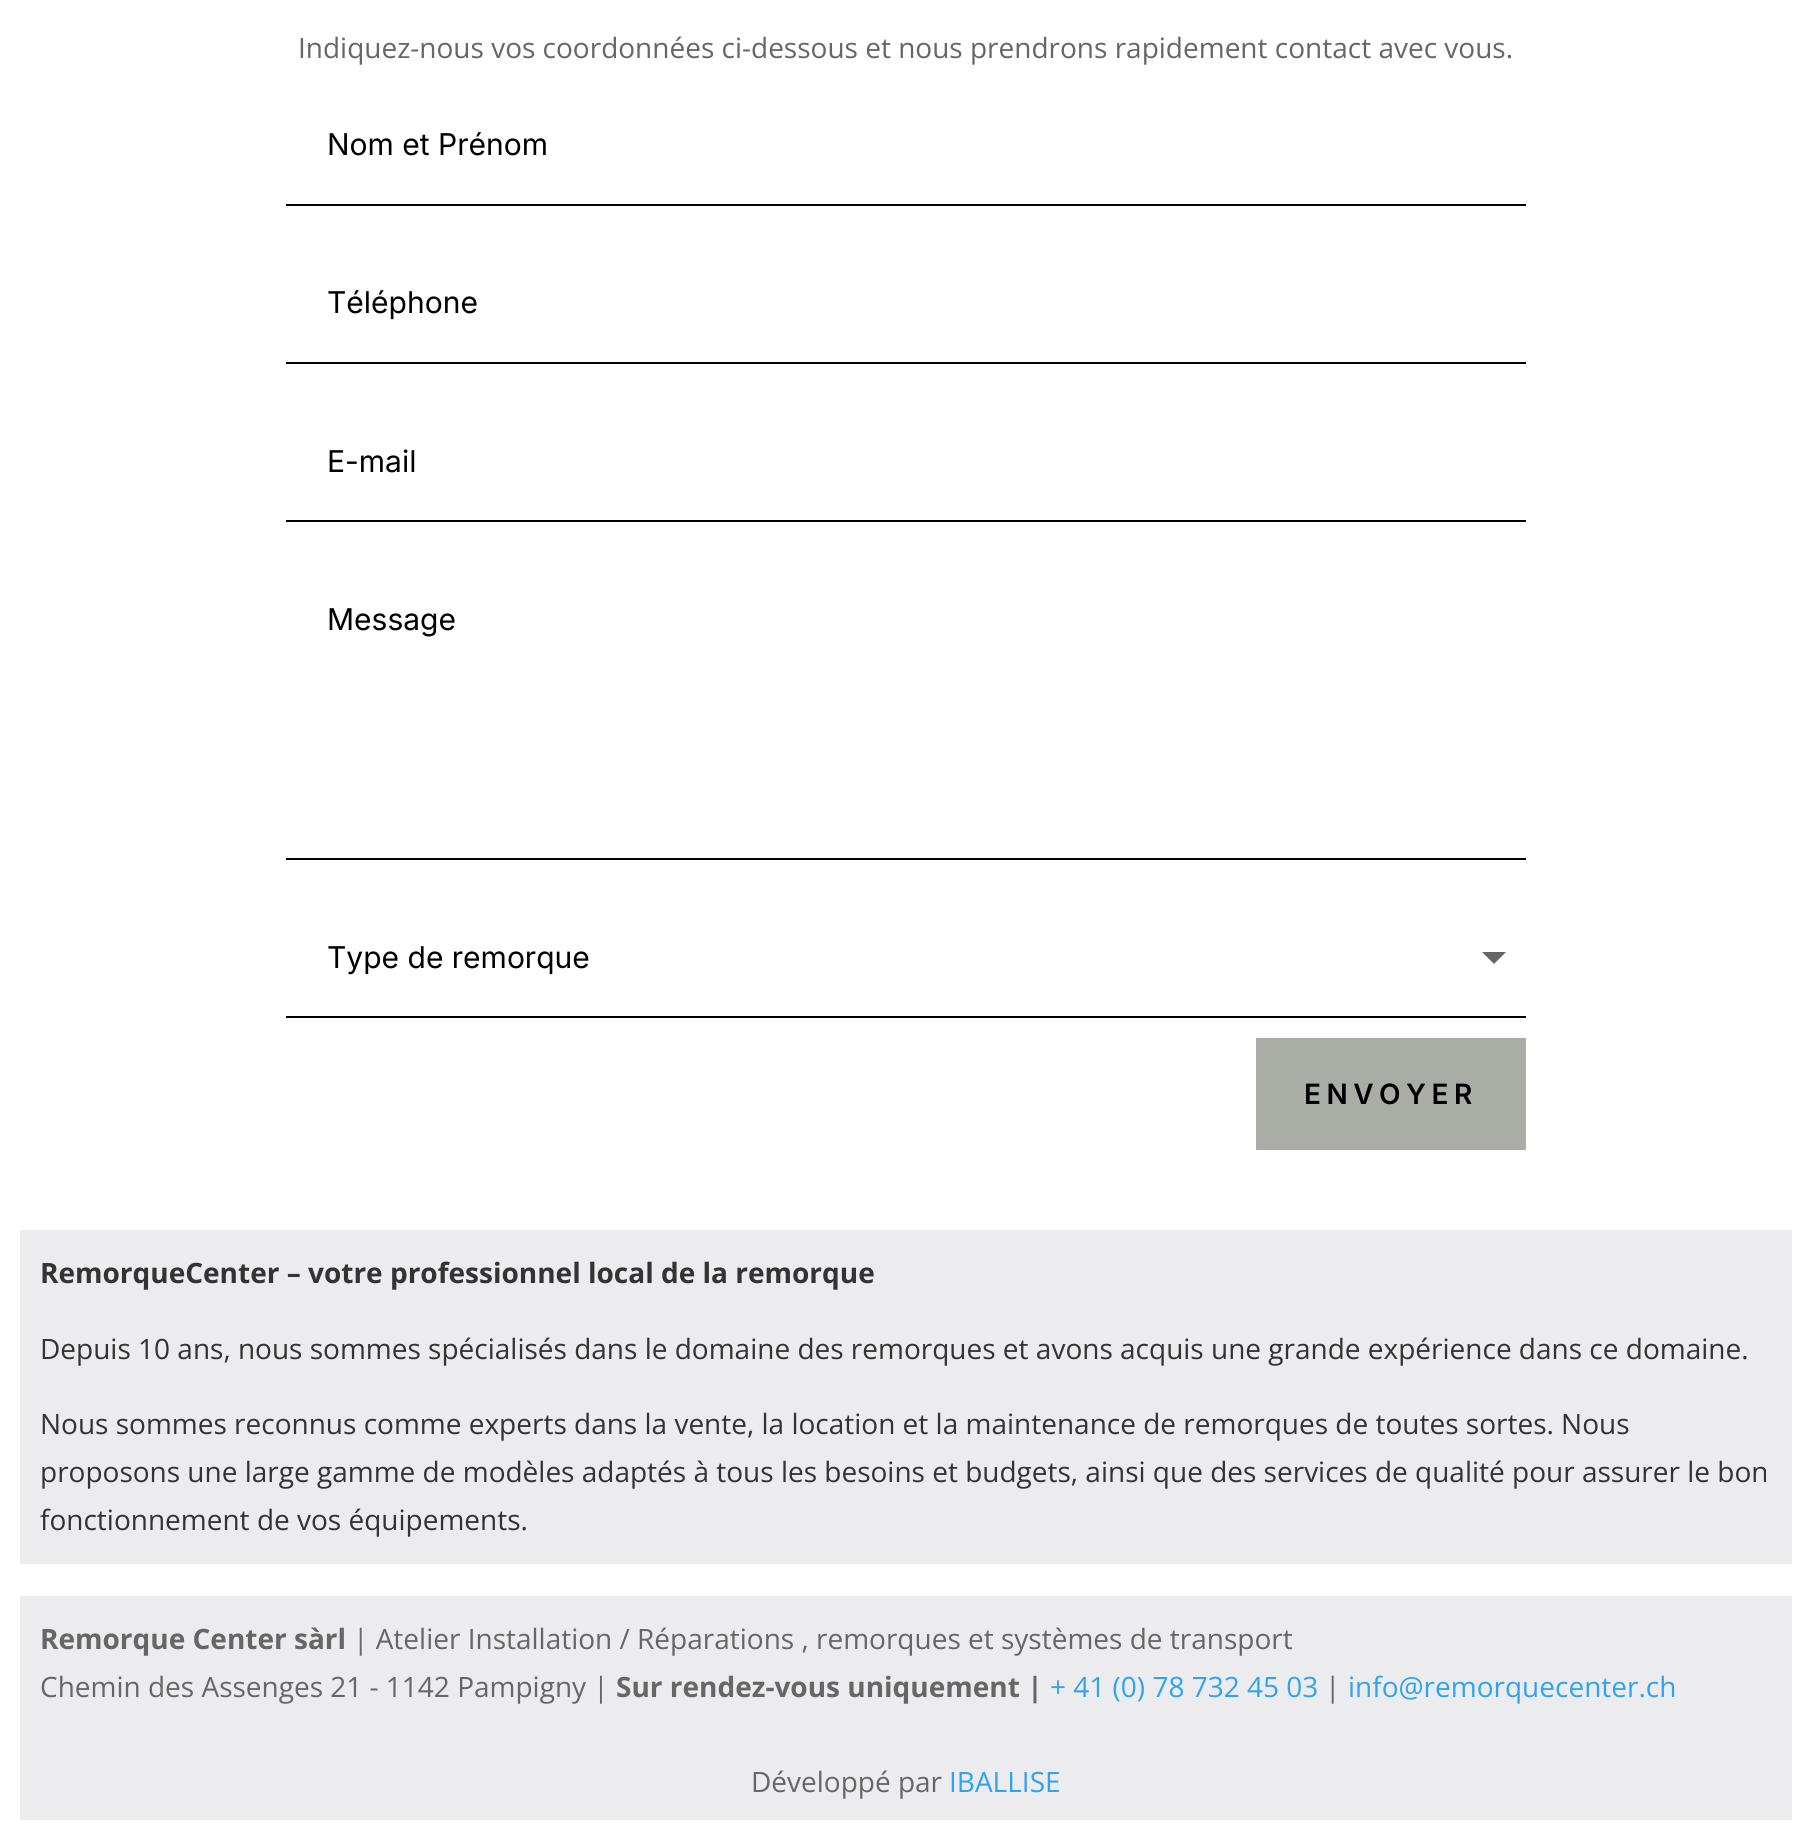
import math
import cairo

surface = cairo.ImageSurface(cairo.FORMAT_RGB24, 1811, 1839)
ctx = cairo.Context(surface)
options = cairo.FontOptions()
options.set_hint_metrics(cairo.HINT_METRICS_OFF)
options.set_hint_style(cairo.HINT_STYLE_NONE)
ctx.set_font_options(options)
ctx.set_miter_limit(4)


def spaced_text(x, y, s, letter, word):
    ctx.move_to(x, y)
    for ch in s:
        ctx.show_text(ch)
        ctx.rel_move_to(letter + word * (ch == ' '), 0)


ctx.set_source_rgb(1, 1, 1)
ctx.paint()
ctx.select_font_face("Open Sans")
ctx.set_font_size(28)
ctx.set_source_rgb(0.4, 0.4, 0.4)
ctx.move_to(298, 58)
ctx.show_text("Indiquez-nous vos coordonnées ci-dessous et nous prendrons rapidement contact avec vous.")
ctx.set_source_rgb(0, 0, 0)
ctx.rectangle(286, 204, 1240, 2)
ctx.fill()
ctx.select_font_face("Inter")
ctx.set_font_size(30)
ctx.move_to(327, 155)
ctx.show_text("Nom et Prénom")
ctx.rectangle(286, 362, 1240, 2)
ctx.fill()
ctx.move_to(327, 313)
ctx.show_text("Téléphone")
ctx.rectangle(286, 520, 1240, 2)
ctx.fill()
ctx.move_to(327, 472)
ctx.show_text("E-mail")
ctx.rectangle(286, 858, 1240, 2)
ctx.fill()
ctx.move_to(327, 630)
ctx.show_text("Message")
ctx.rectangle(286, 1016, 1240, 2)
ctx.fill()
ctx.move_to(327, 968)
ctx.show_text("Type de remorque")
ctx.set_source_rgb(0.4, 0.4, 0.4)
ctx.new_path()
ctx.move_to(1482, 952)
ctx.line_to(1506, 952)
ctx.line_to(1494, 964)
ctx.close_path()
ctx.fill()
ctx.set_source_rgb(0.663, 0.678, 0.647)
ctx.rectangle(1256, 1038, 270, 112)
ctx.fill()
ctx.select_font_face("Inter SemiBold")
ctx.set_font_size(28)
ctx.set_source_rgb(0, 0, 0)
spaced_text(1304, 1104, "ENVOYER", 5.5, 0)
ctx.set_source_rgb(0.922, 0.922, 0.933)
ctx.rectangle(20, 1230, 1772, 334)
ctx.fill()
ctx.select_font_face("Open Sans", cairo.FONT_SLANT_NORMAL, cairo.FONT_WEIGHT_BOLD)
ctx.set_source_rgb(0.2, 0.2, 0.2)
ctx.move_to(40, 1283)
ctx.show_text("RemorqueCenter – votre professionnel local de la remorque")
ctx.select_font_face("Open Sans")
ctx.move_to(40, 1359)
ctx.show_text("Depuis 10 ans, nous sommes spécialisés dans le domaine des remorques et avons acquis une grande expérience dans ce domaine.")
ctx.move_to(40, 1434)
ctx.show_text("Nous sommes reconnus comme experts dans la vente, la location et la maintenance de remorques de toutes sortes. Nous")
ctx.move_to(40, 1482)
ctx.show_text("proposons une large gamme de modèles adaptés à tous les besoins et budgets, ainsi que des services de qualité pour assurer le bon")
ctx.move_to(40, 1530)
ctx.show_text("fonctionnement de vos équipements.")
ctx.set_source_rgb(0.922, 0.922, 0.933)
ctx.rectangle(20, 1596, 1772, 224)
ctx.fill()
ctx.select_font_face("Open Sans", cairo.FONT_SLANT_NORMAL, cairo.FONT_WEIGHT_BOLD)
ctx.set_source_rgb(0.4, 0.4, 0.4)
ctx.move_to(40, 1649)
ctx.show_text("Remorque Center sàrl")
ctx.select_font_face("Open Sans")
ctx.move_to(353, 1649)
ctx.show_text("| Atelier Installation / Réparations , remorques et systèmes de transport")
ctx.move_to(40, 1697)
ctx.show_text("Chemin des Assenges 21 - 1142 Pampigny |")
ctx.select_font_face("Open Sans", cairo.FONT_SLANT_NORMAL, cairo.FONT_WEIGHT_BOLD)
ctx.move_to(616, 1697)
ctx.show_text("Sur rendez-vous uniquement |")
ctx.select_font_face("Open Sans")
ctx.set_source_rgb(0.18, 0.639, 0.949)
ctx.move_to(1050, 1697)
ctx.show_text("+ 41 (0) 78 732 45 03")
ctx.set_source_rgb(0.4, 0.4, 0.4)
ctx.move_to(1325, 1697)
ctx.show_text("|")
ctx.set_source_rgb(0.18, 0.639, 0.949)
ctx.move_to(1348, 1697)
ctx.show_text("info@remorquecenter.ch")
ctx.set_source_rgb(0.4, 0.4, 0.4)
ctx.move_to(751, 1792)
ctx.show_text("Développé par")
ctx.set_source_rgb(0.18, 0.639, 0.949)
ctx.move_to(949, 1792)
ctx.show_text("IBALLISE")
surface.write_to_png("page.png")
